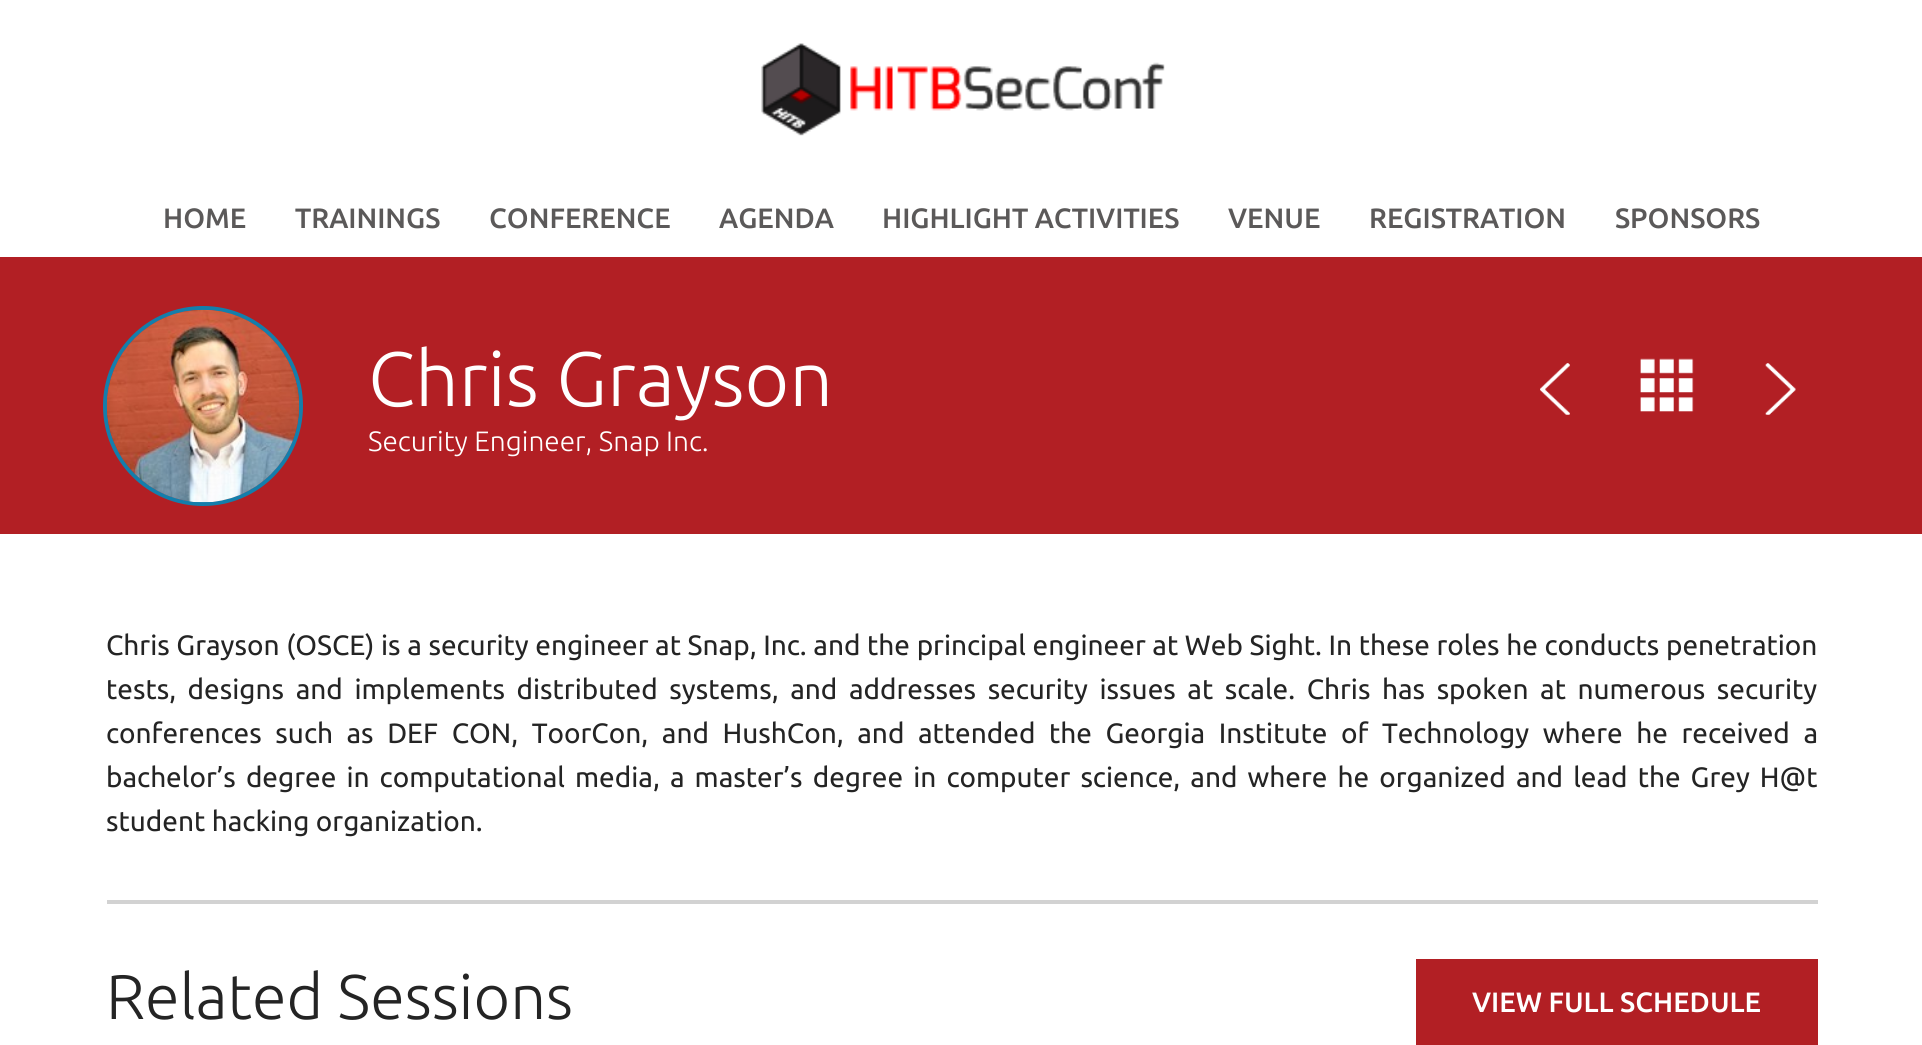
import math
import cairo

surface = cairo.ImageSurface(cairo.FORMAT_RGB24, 1922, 1045)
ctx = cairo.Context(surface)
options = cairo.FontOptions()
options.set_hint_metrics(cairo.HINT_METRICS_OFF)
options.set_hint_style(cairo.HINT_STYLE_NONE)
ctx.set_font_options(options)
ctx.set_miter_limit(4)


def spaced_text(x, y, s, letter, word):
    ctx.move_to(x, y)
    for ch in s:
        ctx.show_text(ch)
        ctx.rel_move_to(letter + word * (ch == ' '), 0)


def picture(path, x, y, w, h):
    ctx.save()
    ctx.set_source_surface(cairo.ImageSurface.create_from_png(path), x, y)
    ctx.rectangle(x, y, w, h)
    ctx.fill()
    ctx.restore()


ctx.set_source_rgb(1, 1, 1)
ctx.paint()
picture("img1.png", 761, 43, 404, 93)
ctx.select_font_face("Ubuntu Medium")
ctx.set_font_size(28)
ctx.set_source_rgb(0.357, 0.349, 0.349)
ctx.move_to(163, 228)
ctx.show_text("HOME")
ctx.move_to(295, 228)
ctx.show_text("TRAININGS")
ctx.move_to(489, 228)
ctx.show_text("CONFERENCE")
ctx.move_to(719, 228)
ctx.show_text("AGENDA")
ctx.move_to(882, 228)
ctx.show_text("HIGHLIGHT ACTIVITIES")
ctx.move_to(1228, 228)
ctx.show_text("VENUE")
ctx.move_to(1369, 228)
ctx.show_text("REGISTRATION")
ctx.move_to(1615, 228)
ctx.show_text("SPONSORS")
ctx.set_source_rgb(0.698, 0.122, 0.141)
ctx.rectangle(0, 257, 1922, 277)
ctx.fill()
ctx.arc(203, 406, 98, 0, 2 * math.pi)
ctx.set_source_rgb(0.082, 0.494, 0.671)
ctx.set_line_width(4)
ctx.stroke()
picture("img2.png", 106, 309, 194, 194)
ctx.select_font_face("Ubuntu Light")
ctx.set_font_size(77)
ctx.set_source_rgb(1, 1, 1)
ctx.move_to(368, 406)
ctx.show_text("Chris Grayson")
ctx.set_font_size(28)
ctx.move_to(368, 451)
ctx.show_text("Security Engineer, Snap Inc.")
picture("img3.png", 1540, 363, 30, 52)
picture("img4.png", 1640, 358, 54, 54)
picture("img5.png", 1765, 363, 31, 52)
ctx.select_font_face("Ubuntu")
ctx.set_source_rgb(0.141, 0.141, 0.141)
spaced_text(106, 655, "Chris Grayson (OSCE) is a security engineer at Snap, Inc. and the principal engineer at Web Sight. In these roles he conducts penetration", 0, 0.15)
spaced_text(106, 699, "tests, designs and implements distributed systems, and addresses security issues at scale. Chris has spoken at numerous security", 0, 5.1)
spaced_text(106, 743, "conferences such as DEF CON, ToorCon, and HushCon, and attended the Georgia Institute of Technology where he received a", 0, 7.1)
spaced_text(106, 787, "bachelor’s degree in computational media, a master’s degree in computer science, and where he organized and lead the Grey H@t", 0, 3.6)
ctx.move_to(106, 831)
ctx.show_text("student hacking organization.")
ctx.set_source_rgb(0.824, 0.824, 0.824)
ctx.rectangle(107, 900, 1711, 4)
ctx.fill()
ctx.select_font_face("Ubuntu Light")
ctx.set_font_size(63)
ctx.set_source_rgb(0.141, 0.141, 0.141)
ctx.move_to(106, 1019)
ctx.show_text("Related Sessions")
ctx.set_source_rgb(0.698, 0.122, 0.141)
ctx.rectangle(1416, 959, 402, 86)
ctx.fill()
ctx.select_font_face("Ubuntu Medium")
ctx.set_font_size(28)
ctx.set_source_rgb(1, 1, 1)
ctx.move_to(1472, 1012)
ctx.show_text("VIEW FULL SCHEDULE")
surface.write_to_png("page.png")
